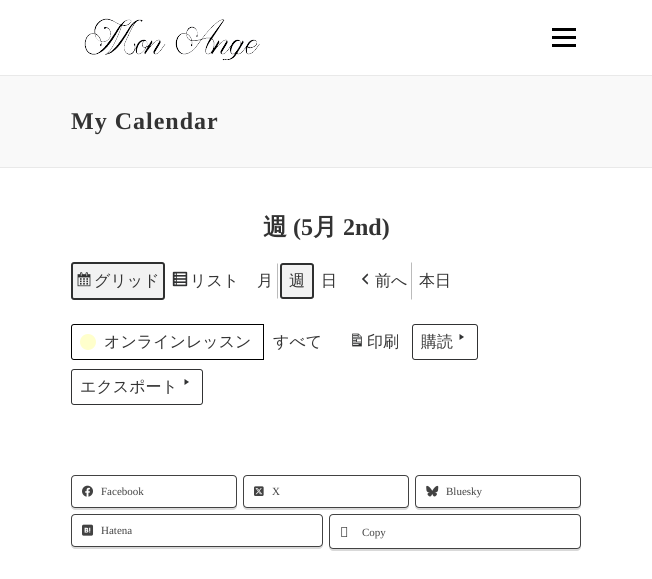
import math
import cairo

surface = cairo.ImageSurface(cairo.FORMAT_RGB24, 652, 579)
ctx = cairo.Context(surface)
options = cairo.FontOptions()
options.set_hint_metrics(cairo.HINT_METRICS_OFF)
options.set_hint_style(cairo.HINT_STYLE_NONE)
ctx.set_font_options(options)
ctx.set_miter_limit(4)


def spaced_text(x, y, s, letter, word):
    ctx.move_to(x, y)
    for ch in s:
        ctx.show_text(ch)
        ctx.rel_move_to(letter + word * (ch == ' '), 0)


def round_rect(x, y, w, h, r):
    ctx.new_sub_path()
    for i, (u, v) in enumerate([(x + w - r, y + h - r), (x + r, y + h - r), (x + r, y + r), (x + w - r, y + r)]):
        ctx.arc(u, v, r, i * math.pi / 2, (i + 1) * math.pi / 2)
    ctx.close_path()


def picture(path, x, y, w, h):
    ctx.save()
    ctx.set_source_surface(cairo.ImageSurface.create_from_png(path), x, y)
    ctx.rectangle(x, y, w, h)
    ctx.fill()
    ctx.restore()


ctx.set_source_rgb(1, 1, 1)
ctx.paint()
picture("img1.png", 84, 18, 176, 43)
ctx.set_source_rgb(0, 0, 0)
ctx.rectangle(552, 36, 24, 3)
ctx.fill()
ctx.rectangle(552, 28, 24, 3)
ctx.fill()
ctx.rectangle(552, 44, 24, 3)
ctx.fill()
ctx.set_source_rgb(0.973, 0.976, 0.976)
ctx.rectangle(0, 76, 652, 91)
ctx.fill()
ctx.set_source_rgb(0.914, 0.914, 0.914)
ctx.rectangle(0, 75, 652, 1)
ctx.fill()
ctx.rectangle(0, 167, 652, 1)
ctx.fill()
ctx.select_font_face("Liberation Serif", cairo.FONT_SLANT_NORMAL, cairo.FONT_WEIGHT_BOLD)
ctx.set_font_size(24)
ctx.set_source_rgb(0.2, 0.2, 0.2)
spaced_text(71, 129, "My Calendar", 1, 0)
ctx.select_font_face("WenQuanYi Zen Hei", cairo.FONT_SLANT_NORMAL, cairo.FONT_WEIGHT_BOLD)
ctx.move_to(263, 235)
ctx.show_text("週")
ctx.select_font_face("Liberation Serif", cairo.FONT_SLANT_NORMAL, cairo.FONT_WEIGHT_BOLD)
ctx.move_to(293, 235)
ctx.show_text("(5")
ctx.select_font_face("WenQuanYi Zen Hei", cairo.FONT_SLANT_NORMAL, cairo.FONT_WEIGHT_BOLD)
ctx.move_to(313, 235)
ctx.show_text("月")
ctx.select_font_face("Liberation Serif", cairo.FONT_SLANT_NORMAL, cairo.FONT_WEIGHT_BOLD)
ctx.move_to(343, 235)
ctx.show_text("2nd)")
ctx.set_source_rgb(0.949, 0.949, 0.949)
round_rect(71, 262, 94, 38, 3)
ctx.fill()
picture("img2.png", 77, 272, 14, 15)
round_rect(72, 263, 92, 36, 2)
ctx.set_source_rgb(0.184, 0.188, 0.188)
ctx.stroke()
ctx.select_font_face("WenQuanYi Zen Hei Medium")
ctx.set_font_size(16)
ctx.set_source_rgb(0.2, 0.2, 0.2)
ctx.move_to(94, 286)
ctx.show_text("グリッド")
picture("img3.png", 172, 271, 16, 16)
ctx.move_to(190, 286)
ctx.show_text("リスト")
ctx.set_source_rgb(0.733, 0.733, 0.733)
ctx.new_path()
ctx.move_to(278, 263)
ctx.line_to(277, 264)
ctx.line_to(277, 298)
ctx.line_to(278, 299)
ctx.close_path()
ctx.fill()
ctx.set_source_rgb(0.2, 0.2, 0.2)
ctx.move_to(257, 286)
ctx.show_text("月")
ctx.set_source_rgb(0.949, 0.949, 0.949)
round_rect(280, 263, 34, 36, 3)
ctx.fill()
ctx.new_path()
ctx.move_to(313, 264)
ctx.curve_to(313, 264.5, 313.5, 265.5, 313.5, 266)
ctx.line_to(313.5, 296)
ctx.curve_to(313.5, 296.5, 313, 297.5, 313, 298)
ctx.set_source_rgb(0.698, 0.698, 0.698)
ctx.set_line_width(1)
ctx.stroke()
round_rect(281, 264, 32, 34, 2)
ctx.set_source_rgb(0.184, 0.188, 0.188)
ctx.set_line_width(2)
ctx.stroke()
ctx.set_source_rgb(0.2, 0.2, 0.2)
ctx.move_to(289, 286)
ctx.show_text("週")
ctx.move_to(321, 286)
ctx.show_text("日")
ctx.set_source_rgb(0.733, 0.733, 0.733)
ctx.new_path()
ctx.move_to(412, 262)
ctx.line_to(411, 263)
ctx.line_to(411, 299)
ctx.line_to(412, 300)
ctx.close_path()
ctx.fill()
picture("img4.png", 362, 273, 7, 12)
ctx.set_source_rgb(0.2, 0.2, 0.2)
ctx.move_to(375, 286)
ctx.show_text("前へ")
ctx.move_to(419, 286)
ctx.show_text("本日")
ctx.new_path()
ctx.move_to(74, 324.5)
ctx.line_to(263.5, 324.5)
ctx.line_to(263.5, 359.5)
ctx.line_to(74, 359.5)
ctx.curve_to(72.5, 359.5, 71.5, 358.5, 71.5, 357)
ctx.line_to(71.5, 327)
ctx.curve_to(71.5, 325.5, 72.5, 324.5, 74, 324.5)
ctx.close_path()
ctx.set_source_rgb(0, 0, 0)
ctx.set_line_width(1)
ctx.stroke()
ctx.set_source_rgb(1, 1, 0.8)
ctx.arc(88, 342, 8, 0, 2 * math.pi)
ctx.fill()
ctx.set_source_rgb(0.2, 0.2, 0.2)
ctx.move_to(104, 347)
ctx.show_text("オンラインレッスン")
ctx.move_to(273, 347)
ctx.show_text("すべて")
picture("img5.png", 352, 333, 10, 14)
ctx.move_to(367, 347)
ctx.show_text("印刷")
round_rect(412.5, 324.5, 65, 35, 2.5)
ctx.set_source_rgb(0.192, 0.196, 0.2)
ctx.stroke()
ctx.set_source_rgb(0.2, 0.2, 0.2)
ctx.move_to(421, 347)
ctx.show_text("購読")
ctx.set_source_rgb(0.192, 0.196, 0.2)
ctx.new_path()
ctx.move_to(459.5, 334)
ctx.line_to(464, 337)
ctx.line_to(459.5, 340)
ctx.close_path()
ctx.fill()
round_rect(71.5, 369.5, 131, 35, 2.5)
ctx.stroke()
ctx.set_source_rgb(0.2, 0.2, 0.2)
ctx.move_to(80, 392)
ctx.show_text("エクスポート")
ctx.set_source_rgb(0.192, 0.196, 0.2)
ctx.new_path()
ctx.move_to(184.5, 379)
ctx.line_to(189, 382)
ctx.line_to(184.5, 385)
ctx.close_path()
ctx.fill()
ctx.set_source_rgb(0.851, 0.851, 0.851)
ctx.new_path()
ctx.move_to(71, 504)
ctx.line_to(71, 506)
ctx.curve_to(71, 508, 73, 510, 75, 510)
ctx.line_to(233, 510)
ctx.curve_to(235, 510, 237, 508, 237, 506)
ctx.line_to(237, 504)
ctx.curve_to(237, 506, 235, 508, 233, 508)
ctx.line_to(75, 508)
ctx.curve_to(73, 508, 71, 506, 71, 504)
ctx.close_path()
ctx.fill()
round_rect(71.5, 475.5, 165, 32, 3.5)
ctx.set_source_rgb(0.259, 0.259, 0.259)
ctx.stroke()
picture("img6.png", 82, 485, 11, 12)
ctx.select_font_face("Liberation Serif")
ctx.set_font_size(11)
ctx.move_to(101, 495)
ctx.show_text("Facebook")
ctx.set_source_rgb(0.851, 0.851, 0.851)
ctx.new_path()
ctx.move_to(243, 504)
ctx.line_to(243, 506)
ctx.curve_to(243, 508, 245, 510, 247, 510)
ctx.line_to(405, 510)
ctx.curve_to(407, 510, 409, 508, 409, 506)
ctx.line_to(409, 504)
ctx.curve_to(409, 506, 407, 508, 405, 508)
ctx.line_to(247, 508)
ctx.curve_to(245, 508, 243, 506, 243, 504)
ctx.close_path()
ctx.fill()
round_rect(243.5, 475.5, 165, 32, 3.5)
ctx.set_source_rgb(0.259, 0.259, 0.259)
ctx.stroke()
picture("img7.png", 254, 486, 10, 10)
ctx.move_to(272, 495)
ctx.show_text("X")
ctx.set_source_rgb(0.851, 0.851, 0.851)
ctx.new_path()
ctx.move_to(415, 504)
ctx.line_to(415, 506)
ctx.curve_to(415, 508, 417, 510, 419, 510)
ctx.line_to(577, 510)
ctx.curve_to(579, 510, 581, 508, 581, 506)
ctx.line_to(581, 504)
ctx.curve_to(581, 506, 579, 508, 577, 508)
ctx.line_to(419, 508)
ctx.curve_to(417, 508, 415, 506, 415, 504)
ctx.close_path()
ctx.fill()
round_rect(415.5, 475.5, 165, 32, 3.5)
ctx.set_source_rgb(0.259, 0.259, 0.259)
ctx.stroke()
picture("img8.png", 426, 485, 13, 12)
ctx.move_to(446, 495)
ctx.show_text("Bluesky")
ctx.set_source_rgb(0.851, 0.851, 0.851)
ctx.new_path()
ctx.move_to(71, 543)
ctx.line_to(71, 545)
ctx.curve_to(71, 547, 73, 549, 75, 549)
ctx.line_to(319, 549)
ctx.curve_to(321, 549, 323, 547, 323, 545)
ctx.line_to(323, 543)
ctx.curve_to(323, 545, 321, 547, 319, 547)
ctx.line_to(75, 547)
ctx.curve_to(73, 547, 71, 545, 71, 543)
ctx.close_path()
ctx.fill()
round_rect(71.5, 514.5, 251, 32, 3.5)
ctx.set_source_rgb(0.259, 0.259, 0.259)
ctx.stroke()
picture("img9.png", 82, 524, 12, 12)
ctx.move_to(101, 534)
ctx.show_text("Hatena")
ctx.set_source_rgb(0.851, 0.851, 0.851)
ctx.new_path()
ctx.move_to(329, 545)
ctx.line_to(329, 547)
ctx.curve_to(329, 549, 331, 551, 333, 551)
ctx.line_to(577, 551)
ctx.curve_to(579, 551, 581, 549, 581, 547)
ctx.line_to(581, 545)
ctx.curve_to(581, 547, 579, 549, 577, 549)
ctx.line_to(333, 549)
ctx.curve_to(331, 549, 329, 547, 329, 545)
ctx.close_path()
ctx.fill()
round_rect(329.5, 514.5, 251, 34, 3.5)
ctx.set_source_rgb(0.259, 0.259, 0.259)
ctx.stroke()
picture("img10.png", 341, 527, 7, 10)
ctx.move_to(362, 536)
ctx.show_text("Copy")
surface.write_to_png("page.png")
